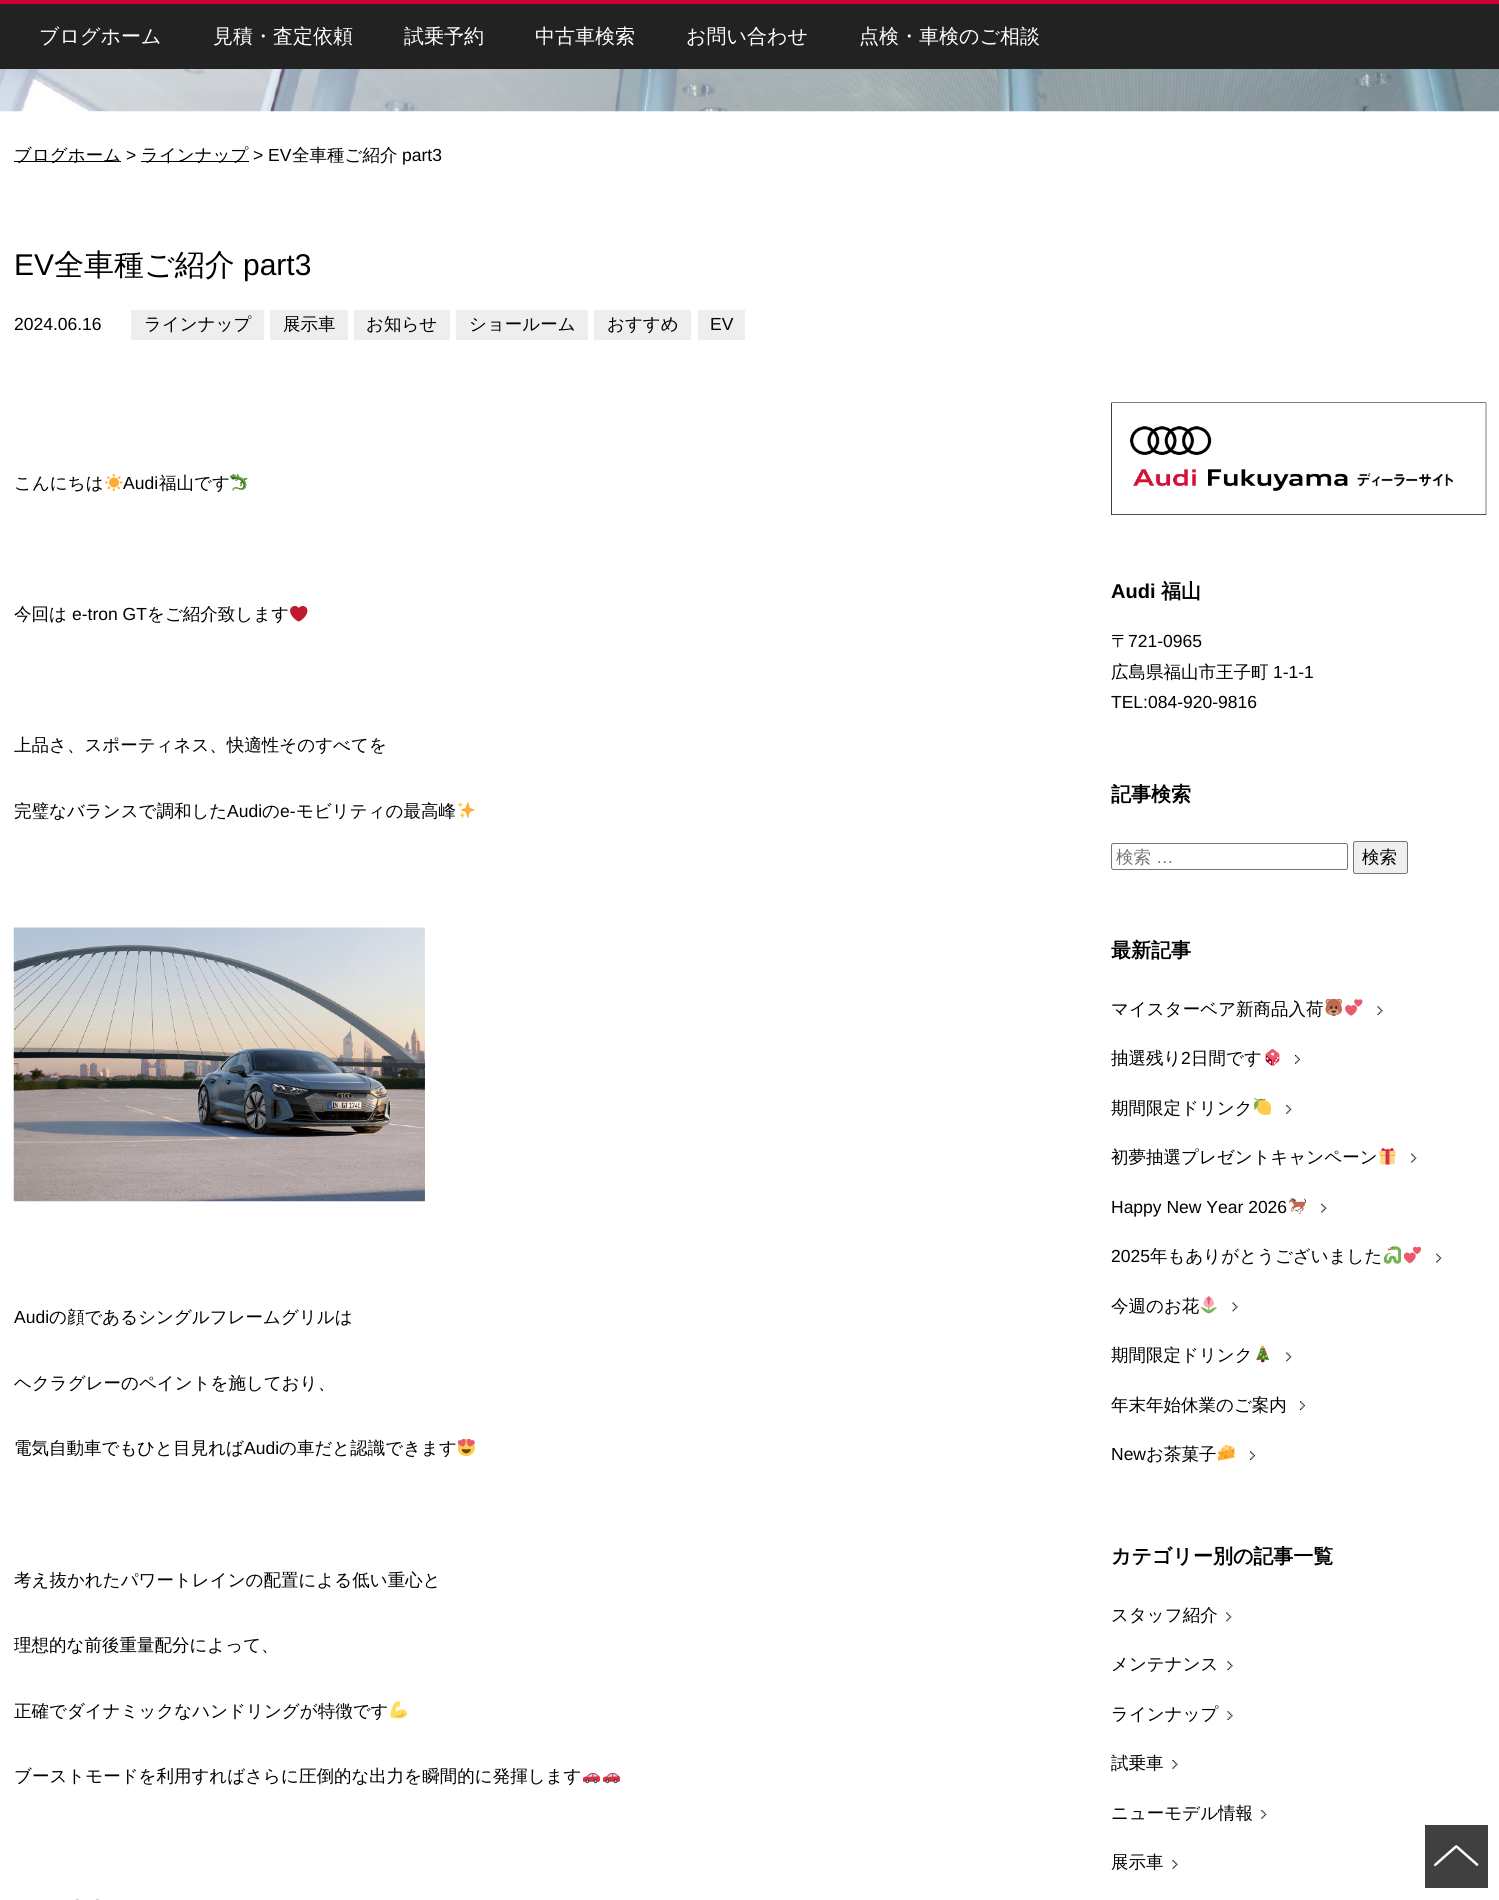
import math
import cairo

surface = cairo.ImageSurface(cairo.FORMAT_RGB24, 1499, 1900)
ctx = cairo.Context(surface)
options = cairo.FontOptions()
options.set_hint_metrics(cairo.HINT_METRICS_OFF)
options.set_hint_style(cairo.HINT_STYLE_NONE)
ctx.set_font_options(options)
ctx.set_miter_limit(4)


def round_rect(x, y, w, h, r):
    ctx.new_sub_path()
    for i, (u, v) in enumerate([(x + w - r, y + h - r), (x + r, y + h - r), (x + r, y + r), (x + w - r, y + r)]):
        ctx.arc(u, v, r, i * math.pi / 2, (i + 1) * math.pi / 2)
    ctx.close_path()


def picture(path, x, y, w, h):
    ctx.save()
    ctx.set_source_surface(cairo.ImageSurface.create_from_png(path), x, y)
    ctx.rectangle(x, y, w, h)
    ctx.fill()
    ctx.restore()


ctx.set_source_rgb(1, 1, 1)
ctx.paint()
ctx.set_source_rgb(0.133, 0.133, 0.133)
ctx.rectangle(0, 4, 1499, 65)
ctx.fill()
ctx.set_source_rgb(0.8, 0, 0.2)
ctx.rectangle(0, 0, 1499, 4)
ctx.fill()
ctx.select_font_face("WenQuanYi Zen Hei Medium")
ctx.set_font_size(20)
ctx.set_source_rgb(1, 1, 1)
ctx.move_to(39, 43)
ctx.show_text("ブログホーム")
ctx.move_to(213, 43)
ctx.show_text("見積・査定依頼")
ctx.move_to(404, 43)
ctx.show_text("試乗予約")
ctx.move_to(535, 43)
ctx.show_text("中古車検索")
ctx.move_to(686, 43)
ctx.show_text("お問い合わせ")
ctx.move_to(859, 43)
ctx.show_text("点検・車検のご相談")
picture("img1.png", 0, 69, 1499, 43)
ctx.set_source_rgb(0, 0, 0)
ctx.rectangle(14, 161, 107, 1)
ctx.fill()
ctx.set_font_size(17.5)
ctx.move_to(14, 161)
ctx.show_text("ブログホーム")
ctx.select_font_face("Liberation Sans")
ctx.move_to(126, 161)
ctx.show_text(">")
ctx.rectangle(141, 161, 108, 1)
ctx.fill()
ctx.select_font_face("WenQuanYi Zen Hei Medium")
ctx.move_to(141, 161)
ctx.show_text("ラインナップ")
ctx.select_font_face("Liberation Sans")
ctx.move_to(253, 161)
ctx.show_text("> EV")
ctx.select_font_face("WenQuanYi Zen Hei Medium")
ctx.move_to(292, 161)
ctx.show_text("全車種ご紹介")
ctx.select_font_face("Liberation Sans")
ctx.move_to(402, 161)
ctx.show_text("part3")
ctx.set_font_size(30)
ctx.move_to(14, 275)
ctx.show_text("EV")
ctx.select_font_face("WenQuanYi Zen Hei Medium")
ctx.move_to(54, 275)
ctx.show_text("全車種ご紹介")
ctx.select_font_face("Liberation Sans")
ctx.move_to(243, 275)
ctx.show_text("part3")
ctx.set_font_size(17.5)
ctx.move_to(14, 330)
ctx.show_text("2024.06.16")
ctx.set_source_rgb(0.933, 0.933, 0.933)
ctx.rectangle(131, 310, 133, 30)
ctx.fill()
ctx.select_font_face("WenQuanYi Zen Hei Medium")
ctx.set_source_rgb(0, 0, 0)
ctx.move_to(144, 330)
ctx.show_text("ラインナップ")
ctx.set_source_rgb(0.933, 0.933, 0.933)
ctx.rectangle(270, 310, 78, 30)
ctx.fill()
ctx.set_source_rgb(0, 0, 0)
ctx.move_to(283, 330)
ctx.show_text("展示車")
ctx.set_source_rgb(0.933, 0.933, 0.933)
ctx.rectangle(354, 310, 96, 30)
ctx.fill()
ctx.set_source_rgb(0, 0, 0)
ctx.move_to(366, 330)
ctx.show_text("お知らせ")
ctx.set_source_rgb(0.933, 0.933, 0.933)
ctx.rectangle(456, 310, 132, 30)
ctx.fill()
ctx.set_source_rgb(0, 0, 0)
ctx.move_to(469, 330)
ctx.show_text("ショールーム")
ctx.set_source_rgb(0.933, 0.933, 0.933)
ctx.rectangle(594, 310, 97, 30)
ctx.fill()
ctx.set_source_rgb(0, 0, 0)
ctx.move_to(607, 330)
ctx.show_text("おすすめ")
ctx.set_source_rgb(0.933, 0.933, 0.933)
ctx.rectangle(698, 310, 47, 30)
ctx.fill()
ctx.select_font_face("Liberation Sans")
ctx.set_source_rgb(0, 0, 0)
ctx.move_to(710, 330)
ctx.show_text("EV")
ctx.select_font_face("WenQuanYi Zen Hei Medium")
ctx.move_to(14, 489)
ctx.show_text("こんにちは")
picture("img2.png", 105, 474, 18, 17)
ctx.select_font_face("Liberation Sans")
ctx.move_to(123, 489)
ctx.show_text("Audi")
ctx.select_font_face("WenQuanYi Zen Hei Medium")
ctx.move_to(159, 489)
ctx.show_text("福山です")
picture("img3.png", 230, 474, 18, 17)
ctx.move_to(14, 620)
ctx.show_text("今回は")
ctx.select_font_face("Liberation Sans")
ctx.move_to(72, 620)
ctx.show_text("e-tron GT")
ctx.select_font_face("WenQuanYi Zen Hei Medium")
ctx.move_to(147, 620)
ctx.show_text("をご紹介致します")
picture("img4.png", 290, 606, 18, 16)
ctx.move_to(14, 751)
ctx.show_text("上品さ、スポーティネス、快適性そのすべてを")
ctx.move_to(14, 817)
ctx.show_text("完璧なバランスで調和した")
ctx.select_font_face("Liberation Sans")
ctx.move_to(227, 817)
ctx.show_text("Audi")
ctx.select_font_face("WenQuanYi Zen Hei Medium")
ctx.move_to(262, 817)
ctx.show_text("の")
ctx.select_font_face("Liberation Sans")
ctx.move_to(280, 817)
ctx.show_text("e-")
ctx.select_font_face("WenQuanYi Zen Hei Medium")
ctx.move_to(296, 817)
ctx.show_text("モビリティの最高峰")
picture("img5.png", 458, 802, 17, 17)
picture("img6.png", 13, 927, 412, 275)
ctx.select_font_face("Liberation Sans")
ctx.move_to(14, 1323)
ctx.show_text("Audi")
ctx.select_font_face("WenQuanYi Zen Hei Medium")
ctx.move_to(49, 1323)
ctx.show_text("の顔であるシングルフレームグリルは")
ctx.move_to(14, 1389)
ctx.show_text("ヘクラグレーのペイントを施しており、")
ctx.move_to(14, 1454)
ctx.show_text("電気自動車でもひと目見れば")
ctx.select_font_face("Liberation Sans")
ctx.move_to(244, 1454)
ctx.show_text("Audi")
ctx.select_font_face("WenQuanYi Zen Hei Medium")
ctx.move_to(279, 1454)
ctx.show_text("の車だと認識できます")
picture("img7.png", 458, 1439, 17, 17)
ctx.move_to(14, 1586)
ctx.show_text("考え抜かれたパワートレインの配置による低い重心と")
ctx.move_to(14, 1651)
ctx.show_text("理想的な前後重量配分によって、")
ctx.move_to(14, 1717)
ctx.show_text("正確でダイナミックなハンドリングが特徴です")
picture("img8.png", 390, 1701, 17, 18)
ctx.move_to(14, 1782)
ctx.show_text("ブーストモードを利用すればさらに圧倒的な出力を瞬間的に発揮します")
picture("img9.png", 583, 1773, 17, 11)
picture("img9.png", 603, 1773, 17, 11)
picture("img10.png", 76, 1898, 3, 2)
picture("img10.png", 96, 1898, 3, 2)
picture("img11.png", 1111, 402, 376, 113)
ctx.select_font_face("Liberation Sans", cairo.FONT_SLANT_NORMAL, cairo.FONT_WEIGHT_BOLD)
ctx.set_font_size(20)
ctx.move_to(1111, 598)
ctx.show_text("Audi")
ctx.select_font_face("WenQuanYi Zen Hei", cairo.FONT_SLANT_NORMAL, cairo.FONT_WEIGHT_BOLD)
ctx.move_to(1161, 598)
ctx.show_text("福山")
ctx.select_font_face("WenQuanYi Zen Hei Medium")
ctx.set_font_size(17.5)
ctx.move_to(1111, 647)
ctx.show_text("〒")
ctx.select_font_face("Liberation Sans")
ctx.move_to(1128, 647)
ctx.show_text("721-0965")
ctx.select_font_face("WenQuanYi Zen Hei Medium")
ctx.move_to(1111, 678)
ctx.show_text("広島県福山市王子町")
ctx.select_font_face("Liberation Sans")
ctx.move_to(1273, 678)
ctx.show_text("1-1-1")
ctx.move_to(1111, 708)
ctx.show_text("TEL:084-920-9816")
ctx.select_font_face("WenQuanYi Zen Hei", cairo.FONT_SLANT_NORMAL, cairo.FONT_WEIGHT_BOLD)
ctx.set_font_size(20)
ctx.move_to(1111, 801)
ctx.show_text("記事検索")
round_rect(1111.5, 843.5, 236, 26, 2)
ctx.set_source_rgb(0.463, 0.463, 0.463)
ctx.set_line_width(1)
ctx.stroke()
ctx.select_font_face("WenQuanYi Zen Hei Medium")
ctx.set_font_size(17.5)
ctx.set_source_rgb(0.459, 0.459, 0.459)
ctx.move_to(1116, 863)
ctx.show_text("検索")
ctx.select_font_face("Liberation Sans")
ctx.move_to(1156, 863)
ctx.show_text("…")
ctx.set_source_rgb(0.937, 0.937, 0.937)
round_rect(1353.5, 841.5, 54, 32, 2)
ctx.fill_preserve()
ctx.set_source_rgb(0.463, 0.463, 0.463)
ctx.stroke()
ctx.select_font_face("WenQuanYi Zen Hei Medium")
ctx.set_source_rgb(0, 0, 0)
ctx.move_to(1362, 863)
ctx.show_text("検索")
ctx.select_font_face("WenQuanYi Zen Hei", cairo.FONT_SLANT_NORMAL, cairo.FONT_WEIGHT_BOLD)
ctx.set_font_size(20)
ctx.move_to(1111, 957)
ctx.show_text("最新記事")
ctx.select_font_face("WenQuanYi Zen Hei Medium")
ctx.set_font_size(17.5)
ctx.move_to(1111, 1015)
ctx.show_text("マイスターベア新商品入荷")
picture("img12.png", 1325, 999, 17, 17)
picture("img13.png", 1345, 999, 18, 17)
picture("img14.png", 1377, 1006, 6, 9)
ctx.move_to(1111, 1064)
ctx.show_text("抽選残り")
ctx.select_font_face("Liberation Sans")
ctx.move_to(1181, 1064)
ctx.show_text("2")
ctx.select_font_face("WenQuanYi Zen Hei Medium")
ctx.move_to(1191, 1064)
ctx.show_text("日間です")
picture("img15.png", 1265, 1049, 15, 17)
picture("img16.png", 1295, 1055, 5, 9)
ctx.move_to(1111, 1114)
ctx.show_text("期間限定ドリンク")
picture("img17.png", 1254, 1098, 17, 17)
picture("img18.png", 1286, 1105, 6, 9)
ctx.move_to(1111, 1163)
ctx.show_text("初夢抽選プレゼントキャンペーン")
picture("img19.png", 1379, 1148, 17, 17)
picture("img20.png", 1411, 1153, 6, 10)
ctx.select_font_face("Liberation Sans")
ctx.move_to(1111, 1213)
ctx.show_text("Happy New Year 2026")
picture("img21.png", 1289, 1198, 17, 16)
picture("img20.png", 1321, 1203, 6, 10)
ctx.move_to(1111, 1262)
ctx.show_text("2025")
ctx.select_font_face("WenQuanYi Zen Hei Medium")
ctx.move_to(1150, 1262)
ctx.show_text("年もありがとうございました")
picture("img22.png", 1384, 1246, 17, 18)
picture("img23.png", 1404, 1246, 17, 18)
picture("img20.png", 1436, 1253, 6, 10)
ctx.move_to(1111, 1312)
ctx.show_text("今週のお花")
picture("img24.png", 1200, 1296, 17, 18)
picture("img25.png", 1232, 1302, 6, 10)
ctx.move_to(1111, 1361)
ctx.show_text("期間限定ドリンク")
picture("img26.png", 1256, 1345, 14, 18)
picture("img27.png", 1286, 1352, 6, 10)
ctx.move_to(1111, 1411)
ctx.show_text("年末年始休業のご案内")
picture("img28.png", 1300, 1401, 5, 9)
ctx.select_font_face("Liberation Sans")
ctx.move_to(1111, 1460)
ctx.show_text("New")
ctx.select_font_face("WenQuanYi Zen Hei Medium")
ctx.move_to(1146, 1460)
ctx.show_text("お茶菓子")
picture("img29.png", 1218, 1444, 17, 17)
picture("img30.png", 1250, 1451, 5, 9)
ctx.select_font_face("WenQuanYi Zen Hei", cairo.FONT_SLANT_NORMAL, cairo.FONT_WEIGHT_BOLD)
ctx.set_font_size(20)
ctx.move_to(1111, 1563)
ctx.show_text("カテゴリー別の記事一覧")
ctx.select_font_face("WenQuanYi Zen Hei Medium")
ctx.set_font_size(17.5)
ctx.move_to(1111, 1621)
ctx.show_text("スタッフ紹介")
picture("img27.png", 1226, 1612, 6, 10)
ctx.move_to(1111, 1670)
ctx.show_text("メンテナンス")
picture("img14.png", 1227, 1661, 6, 9)
ctx.move_to(1111, 1720)
ctx.show_text("ラインナップ")
picture("img14.png", 1227, 1711, 6, 9)
ctx.move_to(1111, 1769)
ctx.show_text("試乗車")
picture("img31.png", 1172, 1760, 6, 9)
ctx.move_to(1111, 1819)
ctx.show_text("ニューモデル情報")
picture("img18.png", 1261, 1810, 6, 9)
ctx.move_to(1111, 1868)
ctx.show_text("展示車")
picture("img31.png", 1172, 1860, 6, 9)
ctx.set_source_rgb(0.251, 0.251, 0.251)
ctx.rectangle(1425, 1825, 63, 63)
ctx.fill()
picture("img32.png", 1433, 1845, 46, 22)
surface.write_to_png("page.png")
